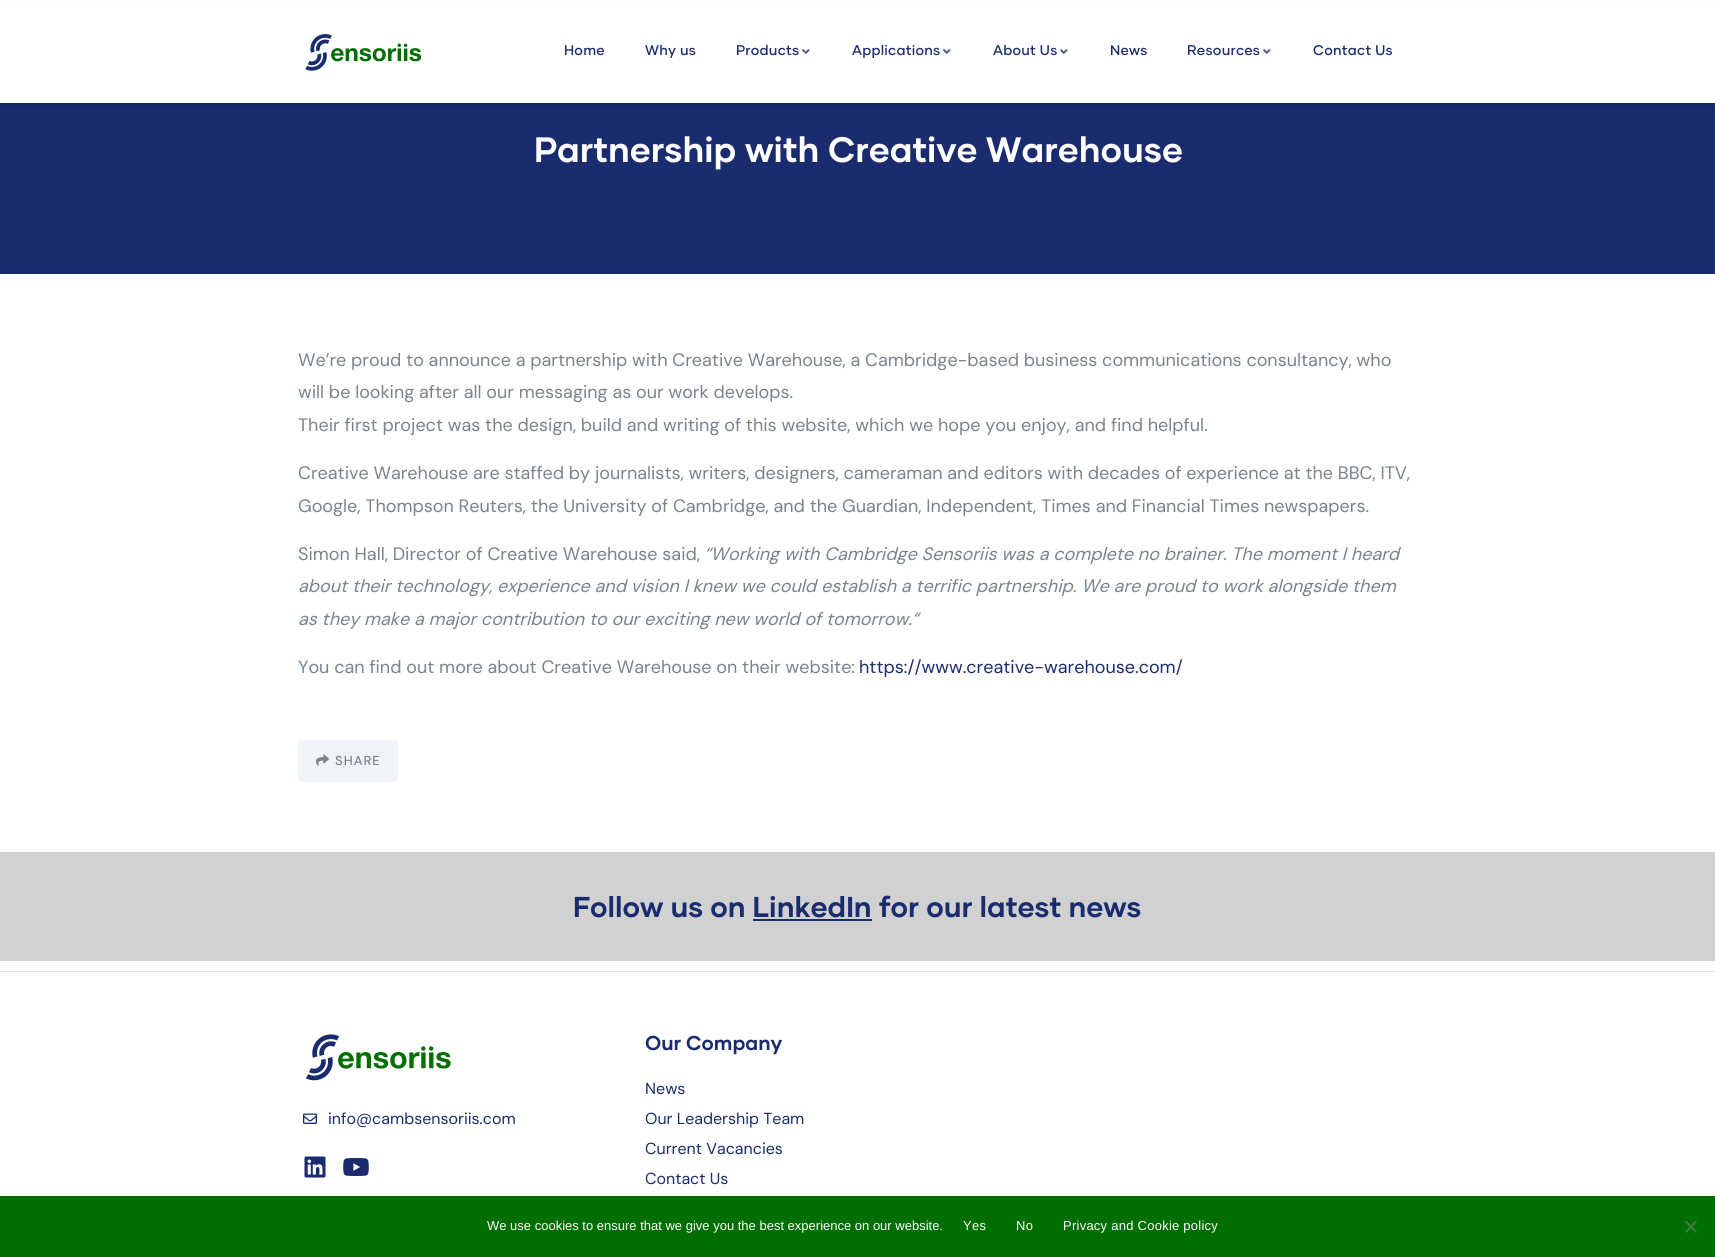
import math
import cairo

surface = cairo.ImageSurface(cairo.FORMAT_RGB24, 1715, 1257)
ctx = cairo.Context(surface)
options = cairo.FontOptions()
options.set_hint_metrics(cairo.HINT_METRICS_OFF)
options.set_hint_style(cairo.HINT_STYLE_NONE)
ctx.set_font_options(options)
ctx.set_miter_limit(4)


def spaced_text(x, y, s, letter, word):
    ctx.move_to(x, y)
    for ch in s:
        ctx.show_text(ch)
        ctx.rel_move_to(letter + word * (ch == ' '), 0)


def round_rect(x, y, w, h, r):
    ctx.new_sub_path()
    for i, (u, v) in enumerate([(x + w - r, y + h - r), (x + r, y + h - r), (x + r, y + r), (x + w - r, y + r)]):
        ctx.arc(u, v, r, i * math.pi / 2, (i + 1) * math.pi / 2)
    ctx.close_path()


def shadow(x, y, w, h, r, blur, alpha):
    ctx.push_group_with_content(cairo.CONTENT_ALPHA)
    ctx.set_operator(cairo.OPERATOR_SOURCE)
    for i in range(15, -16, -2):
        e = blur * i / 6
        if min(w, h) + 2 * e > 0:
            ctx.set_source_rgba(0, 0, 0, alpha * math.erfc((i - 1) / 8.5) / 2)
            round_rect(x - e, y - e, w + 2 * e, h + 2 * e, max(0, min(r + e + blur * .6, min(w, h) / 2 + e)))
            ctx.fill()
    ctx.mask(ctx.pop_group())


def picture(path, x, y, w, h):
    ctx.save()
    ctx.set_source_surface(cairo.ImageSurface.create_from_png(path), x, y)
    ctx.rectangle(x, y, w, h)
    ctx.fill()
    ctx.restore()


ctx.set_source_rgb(1, 1, 1)
ctx.paint()
ctx.set_source_rgb(0.102, 0.173, 0.431)
ctx.rectangle(0, 103, 1715, 171)
ctx.fill()
ctx.set_source_rgb(0, 0, 0)
shadow(2, 3, 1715, 103, 0, 1.5, 0.1)
ctx.set_source_rgb(1, 1, 1)
ctx.rectangle(0, 1, 1715, 102)
ctx.fill()
picture("img1.png", 305, 34, 117, 37)
ctx.select_font_face("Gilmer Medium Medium")
ctx.set_font_size(14)
ctx.set_source_rgb(0.102, 0.173, 0.431)
spaced_text(564, 55, "Home", 0.25, 0)
spaced_text(645, 55, "Why us", 0.25, 0)
spaced_text(736, 55, "Products", 0.25, 0)
picture("img2.png", 802, 49, 8, 5)
spaced_text(852, 55, "Applications", 0.25, 0)
picture("img2.png", 943, 49, 8, 5)
spaced_text(993, 55, "About Us", 0.25, 0)
picture("img2.png", 1060, 49, 8, 5)
spaced_text(1110, 55, "News", 0.25, 0)
spaced_text(1187, 55, "Resources", 0.25, 0)
picture("img2.png", 1263, 49, 8, 5)
spaced_text(1313, 55, "Contact Us", 0.25, 0)
ctx.select_font_face("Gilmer", cairo.FONT_SLANT_NORMAL, cairo.FONT_WEIGHT_BOLD)
ctx.set_font_size(35.25)
ctx.set_source_rgb(1, 1, 1)
ctx.move_to(534, 162)
ctx.show_text("Partnership with Creative Warehouse")
ctx.select_font_face("DM Sans")
ctx.set_font_size(18)
ctx.set_source_rgb(0.478, 0.514, 0.545)
ctx.move_to(298, 366)
ctx.show_text("We’re proud to announce a partnership with Creative Warehouse, a Cambridge-based business communications consultancy, who")
ctx.move_to(298, 398)
ctx.show_text("will be looking after all our messaging as our work develops.")
ctx.move_to(298, 431)
ctx.show_text("Their first project was the design, build and writing of this website, which we hope you enjoy, and find helpful.")
ctx.move_to(298, 479)
ctx.show_text("Creative Warehouse are staffed by journalists, writers, designers, cameraman and editors with decades of experience at the BBC, ITV,")
ctx.move_to(298, 512)
ctx.show_text("Google, Thompson Reuters, the University of Cambridge, and the Guardian, Independent, Times and Financial Times newspapers.")
ctx.move_to(298, 560)
ctx.show_text("Simon Hall, Director of Creative Warehouse said,")
ctx.select_font_face("DM Sans", cairo.FONT_SLANT_ITALIC)
ctx.move_to(704, 560)
ctx.show_text("“Working with Cambridge Sensoriis was a complete no brainer. The moment I heard")
ctx.move_to(298, 592)
ctx.show_text("about their technology, experience and vision I knew we could establish a terrific partnership. We are proud to work alongside them")
ctx.move_to(298, 625)
ctx.show_text("as they make a major contribution to our exciting new world of tomorrow.“")
ctx.select_font_face("DM Sans")
ctx.move_to(298, 673)
ctx.show_text("You can find out more about Creative Warehouse on their website:")
ctx.set_source_rgb(0.102, 0.173, 0.431)
ctx.move_to(859, 673)
ctx.show_text("https://www.creative-warehouse.com/")
ctx.set_source_rgb(0.941, 0.953, 0.965)
round_rect(298, 740, 100, 42, 4)
ctx.fill()
picture("img3.png", 316, 754, 13, 12)
ctx.select_font_face("DM Sans Medium")
ctx.set_font_size(13)
ctx.set_source_rgb(0.478, 0.514, 0.545)
spaced_text(335, 765, "SHARE", 1, 0)
ctx.set_source_rgb(0.82, 0.82, 0.82)
ctx.rectangle(0, 852, 1715, 109)
ctx.fill()
ctx.select_font_face("Gilmer", cairo.FONT_SLANT_NORMAL, cairo.FONT_WEIGHT_BOLD)
ctx.set_font_size(28.75)
ctx.set_source_rgb(0.102, 0.173, 0.431)
ctx.move_to(573, 917)
ctx.show_text("Follow us on LinkedIn for our latest news")
ctx.rectangle(753, 919, 119, 2)
ctx.fill()
ctx.set_source_rgb(0.882, 0.894, 0.925)
ctx.rectangle(0, 971, 1715, 1)
ctx.fill()
picture("img4.png", 306, 1034, 145, 47)
picture("img5.png", 303, 1113, 14, 11)
ctx.select_font_face("DM Sans")
ctx.set_font_size(16)
ctx.set_source_rgb(0.102, 0.173, 0.431)
ctx.move_to(328, 1124)
ctx.show_text("info@cambsensoriis.com")
picture("img6.png", 304, 1156, 22, 22)
picture("img7.png", 343, 1158, 26, 18)
ctx.select_font_face("Gilmer", cairo.FONT_SLANT_NORMAL, cairo.FONT_WEIGHT_BOLD)
ctx.set_font_size(20)
ctx.move_to(645, 1050)
ctx.show_text("Our Company")
ctx.select_font_face("DM Sans")
ctx.set_font_size(16)
ctx.move_to(645, 1094)
ctx.show_text("News")
ctx.move_to(645, 1124)
ctx.show_text("Our Leadership Team")
ctx.move_to(645, 1154)
ctx.show_text("Current Vacancies")
ctx.move_to(645, 1184)
ctx.show_text("Contact Us")
ctx.set_source_rgb(0, 0.431, 0)
ctx.rectangle(0, 1196, 1715, 61)
ctx.fill()
ctx.select_font_face("Liberation Sans")
ctx.set_font_size(13)
ctx.set_source_rgb(1, 1, 1)
ctx.move_to(487, 1230)
ctx.show_text("We use cookies to ensure that we give you the best experience on our website.")
spaced_text(963, 1230, "Yes", 0.25, 0)
spaced_text(1016, 1230, "No", 0.25, 0)
spaced_text(1063, 1230, "Privacy and Cookie policy", 0.25, 0)
ctx.set_source_rgb(0.251, 0.467, 0.251)
ctx.new_path()
ctx.move_to(1695.5, 1220.5)
ctx.line_to(1697, 1222)
ctx.line_to(1686.5, 1233)
ctx.line_to(1685, 1231.5)
ctx.close_path()
ctx.fill()
ctx.new_path()
ctx.move_to(1685, 1222)
ctx.line_to(1686.5, 1220.5)
ctx.line_to(1697, 1231.5)
ctx.line_to(1695.5, 1233)
ctx.close_path()
ctx.fill()
surface.write_to_png("page.png")
